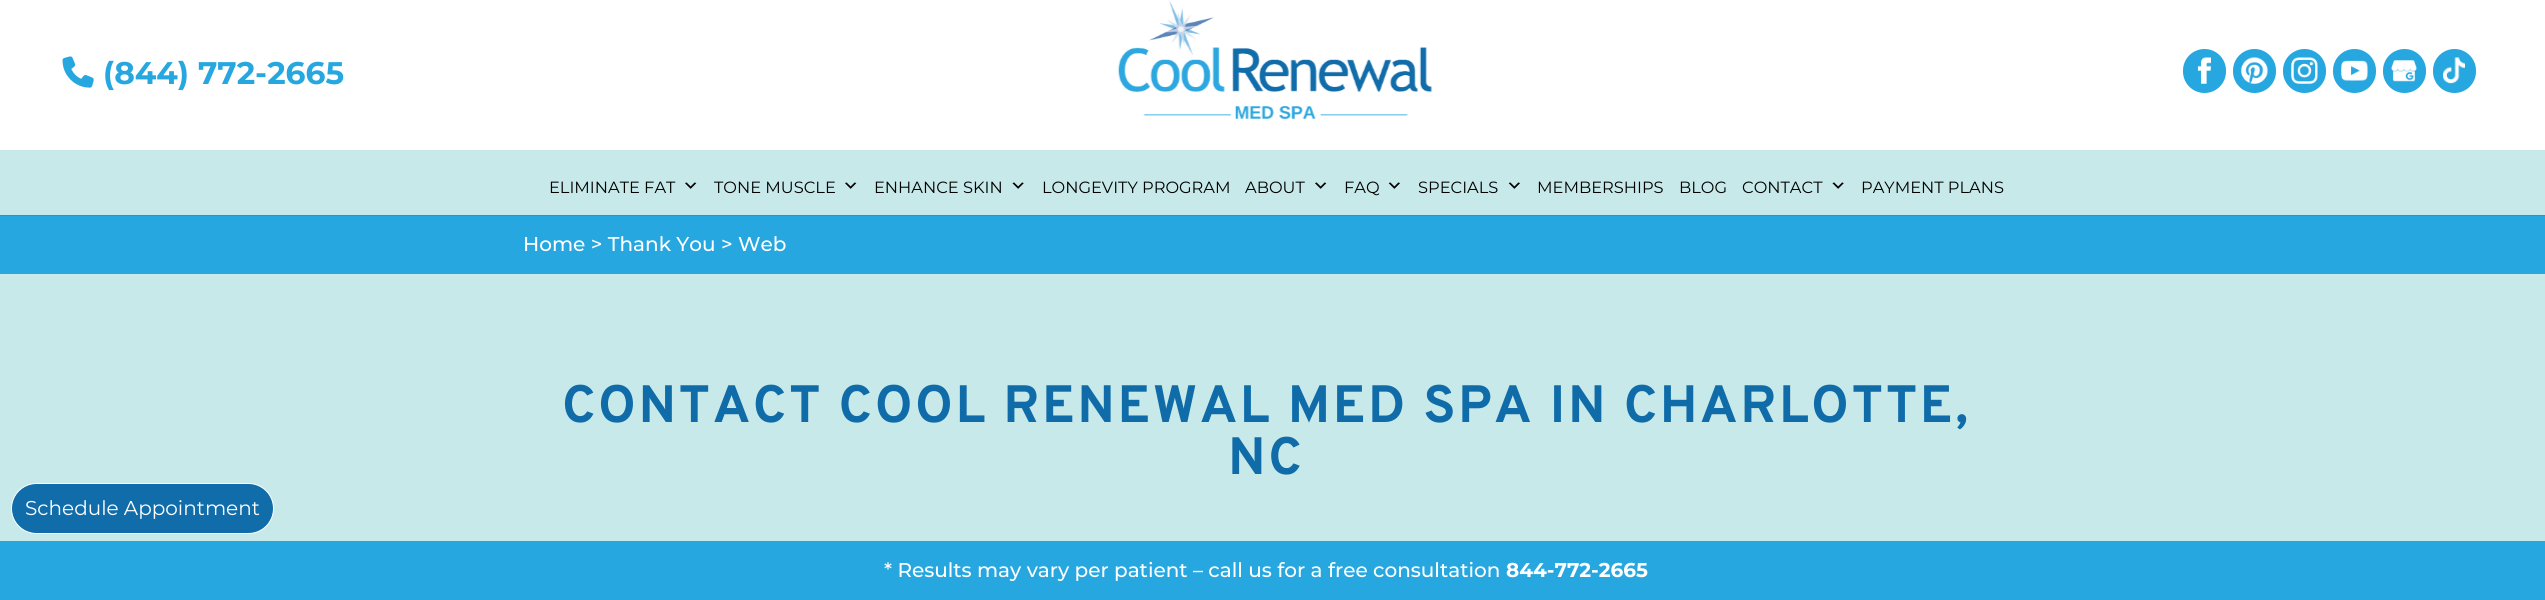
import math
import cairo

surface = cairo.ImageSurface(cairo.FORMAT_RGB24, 2545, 600)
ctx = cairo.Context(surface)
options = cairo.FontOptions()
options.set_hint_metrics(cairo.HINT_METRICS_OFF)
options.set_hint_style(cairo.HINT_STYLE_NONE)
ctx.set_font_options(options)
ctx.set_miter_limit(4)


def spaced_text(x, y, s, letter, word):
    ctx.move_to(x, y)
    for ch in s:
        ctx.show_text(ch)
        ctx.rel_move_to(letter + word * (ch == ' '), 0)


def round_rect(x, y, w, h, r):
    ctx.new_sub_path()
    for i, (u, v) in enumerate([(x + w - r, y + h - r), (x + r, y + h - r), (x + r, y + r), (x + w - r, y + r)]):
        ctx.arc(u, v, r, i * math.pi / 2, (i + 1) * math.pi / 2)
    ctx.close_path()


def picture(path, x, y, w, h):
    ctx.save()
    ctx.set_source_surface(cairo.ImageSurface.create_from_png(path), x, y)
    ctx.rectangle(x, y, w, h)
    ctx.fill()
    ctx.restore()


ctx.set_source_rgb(1, 1, 1)
ctx.paint()
ctx.set_source_rgb(0.137, 0.588, 0.788)
ctx.rectangle(0, 215, 2545, 1)
ctx.fill()
picture("img1.png", 62, 56, 32, 32)
ctx.select_font_face("Montserrat", cairo.FONT_SLANT_NORMAL, cairo.FONT_WEIGHT_BOLD)
ctx.set_font_size(31.25)
ctx.set_source_rgb(0.153, 0.655, 0.875)
ctx.move_to(103, 84)
ctx.show_text("(844) 772-2665")
round_rect(2183, 49, 43, 44, 21.5)
ctx.fill()
picture("img2.png", 2197, 57, 14, 27)
round_rect(2233, 49, 43, 44, 21.5)
ctx.fill()
picture("img3.png", 2241, 57, 27, 27)
round_rect(2283, 49, 43, 44, 21.5)
ctx.fill()
picture("img4.png", 2291, 57, 27, 27)
round_rect(2333, 49, 43, 44, 21.5)
ctx.fill()
picture("img5.png", 2341, 60, 27, 21)
round_rect(2383, 49, 43, 44, 21.5)
ctx.fill()
picture("img6.png", 2391, 60, 26, 22)
round_rect(2433, 49, 43, 44, 21.5)
ctx.fill()
picture("img7.png", 2443, 57, 22, 27)
picture("img8.png", 1118, 0, 314, 120)
ctx.set_source_rgb(0.784, 0.914, 0.914)
ctx.rectangle(0, 150, 2545, 65)
ctx.fill()
ctx.select_font_face("Montserrat")
ctx.set_font_size(16.25)
ctx.set_source_rgb(0, 0, 0)
ctx.move_to(549, 193)
ctx.show_text("ELIMINATE FAT")
picture("img9.png", 685, 182, 12, 7)
ctx.move_to(714, 193)
ctx.show_text("TONE MUSCLE")
picture("img9.png", 845, 182, 12, 7)
ctx.move_to(874, 193)
ctx.show_text("ENHANCE SKIN")
picture("img10.png", 1012, 182, 12, 7)
ctx.move_to(1042, 193)
ctx.show_text("LONGEVITY PROGRAM")
ctx.move_to(1245, 193)
ctx.show_text("ABOUT")
picture("img9.png", 1315, 182, 12, 7)
ctx.move_to(1344, 193)
ctx.show_text("FAQ")
picture("img11.png", 1388, 182, 12, 7)
ctx.move_to(1418, 193)
ctx.show_text("SPECIALS")
picture("img11.png", 1508, 182, 12, 7)
ctx.move_to(1537, 193)
ctx.show_text("MEMBERSHIPS")
ctx.move_to(1679, 193)
ctx.show_text("BLOG")
ctx.move_to(1742, 193)
ctx.show_text("CONTACT")
picture("img10.png", 1832, 182, 12, 7)
ctx.move_to(1861, 193)
ctx.show_text("PAYMENT PLANS")
ctx.set_source_rgb(0.153, 0.655, 0.875)
ctx.rectangle(0, 216, 2545, 58)
ctx.fill()
ctx.select_font_face("Montserrat Medium")
ctx.set_font_size(20)
ctx.set_source_rgb(1, 1, 1)
ctx.move_to(523, 251)
ctx.show_text("Home > Thank You > Web")
ctx.set_source_rgb(0.784, 0.914, 0.914)
ctx.rectangle(0, 274, 2545, 267)
ctx.fill()
ctx.select_font_face("Overpass", cairo.FONT_SLANT_NORMAL, cairo.FONT_WEIGHT_BOLD)
ctx.set_font_size(52.5)
ctx.set_source_rgb(0.063, 0.424, 0.663)
spaced_text(562, 422, "CONTACT COOL RENEWAL MED SPA IN CHARLOTTE,", 2.5, 0)
spaced_text(1228, 474, "NC", 2.5, 0)
ctx.set_source_rgb(0.067, 0.427, 0.667)
round_rect(11.5, 483.5, 262, 50, 25)
ctx.fill_preserve()
ctx.set_source_rgb(1, 1, 1)
ctx.set_line_width(1)
ctx.stroke()
ctx.select_font_face("Montserrat")
ctx.set_font_size(20)
ctx.move_to(25, 515)
ctx.show_text("Schedule Appointment")
ctx.set_source_rgb(0.153, 0.655, 0.875)
ctx.rectangle(0, 541, 2545, 59)
ctx.fill()
ctx.select_font_face("Montserrat Medium")
ctx.set_source_rgb(1, 1, 1)
ctx.move_to(884, 577)
ctx.show_text("* Results may vary per patient – call us for a free consultation")
ctx.select_font_face("Montserrat", cairo.FONT_SLANT_NORMAL, cairo.FONT_WEIGHT_BOLD)
ctx.move_to(1506, 577)
ctx.show_text("844-772-2665")
surface.write_to_png("page.png")
